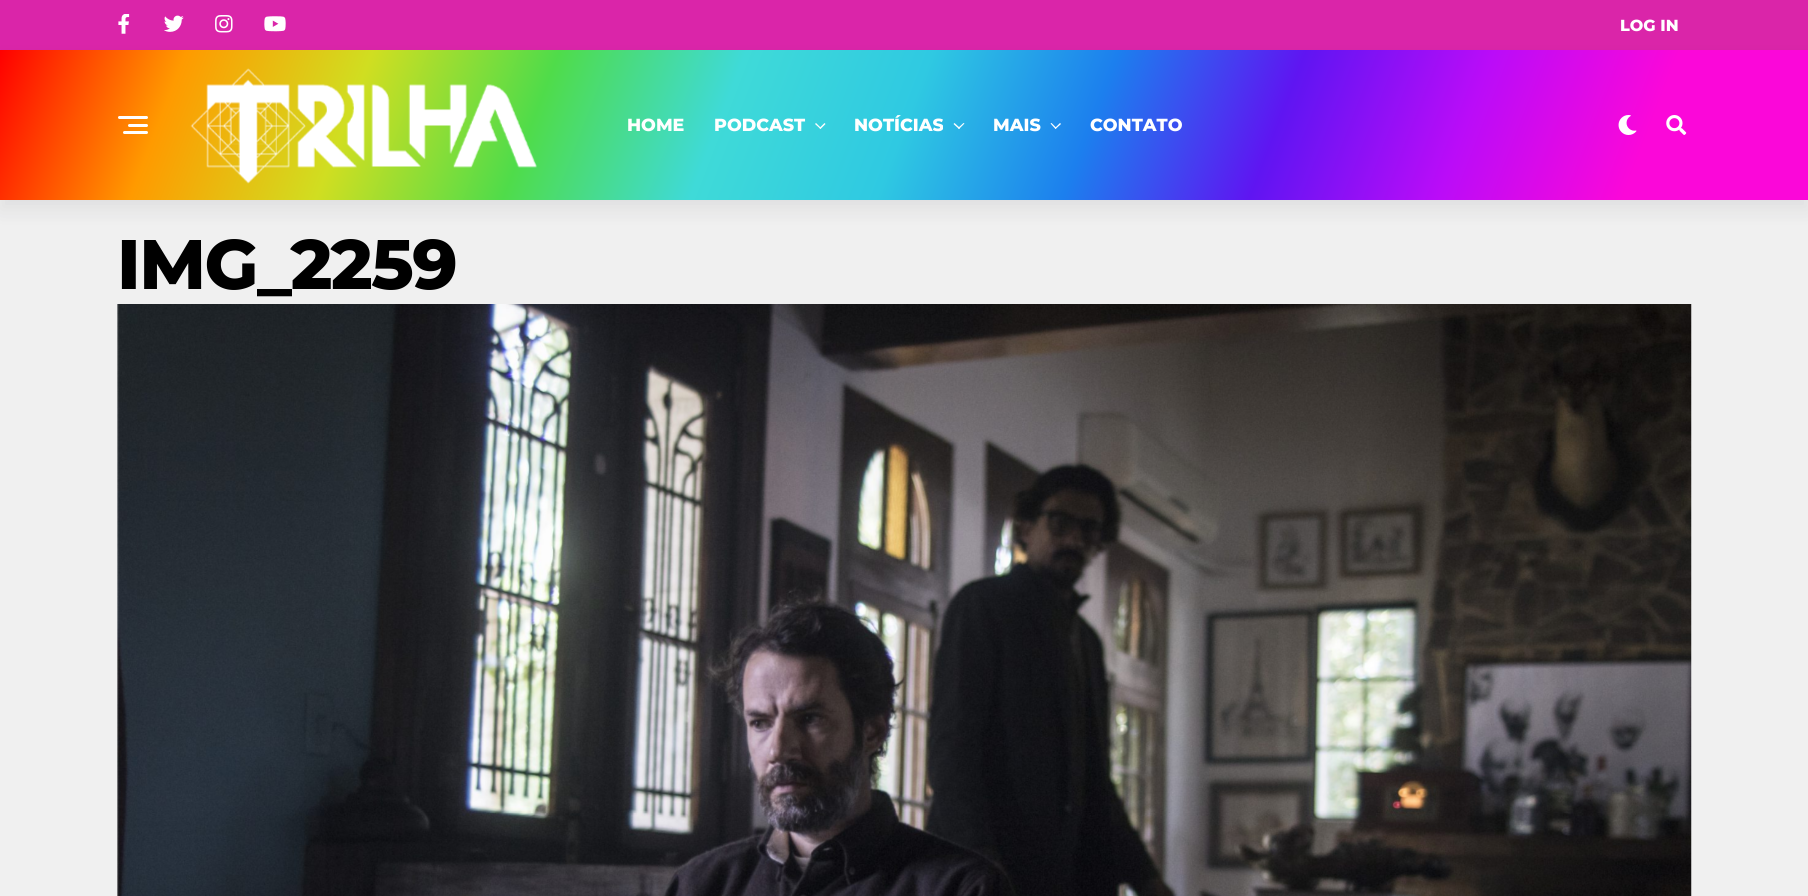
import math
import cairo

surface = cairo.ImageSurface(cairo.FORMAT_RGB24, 1808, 896)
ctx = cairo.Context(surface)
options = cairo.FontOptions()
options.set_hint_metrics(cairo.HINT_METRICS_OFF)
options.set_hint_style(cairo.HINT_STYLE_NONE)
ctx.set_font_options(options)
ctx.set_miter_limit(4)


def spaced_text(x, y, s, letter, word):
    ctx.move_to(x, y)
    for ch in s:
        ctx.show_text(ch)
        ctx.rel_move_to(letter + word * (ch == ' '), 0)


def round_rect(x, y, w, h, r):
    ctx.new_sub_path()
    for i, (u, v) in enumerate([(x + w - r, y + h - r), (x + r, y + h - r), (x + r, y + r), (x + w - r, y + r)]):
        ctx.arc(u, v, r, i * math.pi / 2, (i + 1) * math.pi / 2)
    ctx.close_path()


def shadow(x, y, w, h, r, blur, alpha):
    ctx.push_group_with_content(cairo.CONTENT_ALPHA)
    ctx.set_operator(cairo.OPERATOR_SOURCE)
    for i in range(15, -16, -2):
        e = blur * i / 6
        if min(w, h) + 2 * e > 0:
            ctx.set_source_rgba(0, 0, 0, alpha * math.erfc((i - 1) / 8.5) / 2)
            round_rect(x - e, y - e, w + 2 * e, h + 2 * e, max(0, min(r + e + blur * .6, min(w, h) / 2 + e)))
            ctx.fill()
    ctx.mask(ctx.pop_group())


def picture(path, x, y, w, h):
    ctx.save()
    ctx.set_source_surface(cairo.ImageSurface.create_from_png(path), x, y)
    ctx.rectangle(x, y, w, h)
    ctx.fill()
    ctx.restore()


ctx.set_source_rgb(0.941, 0.941, 0.941)
ctx.paint()
ctx.set_source_rgb(0.855, 0.145, 0.663)
ctx.rectangle(0, 0, 1808, 50)
ctx.fill()
picture("img1.png", 118, 14, 12, 20)
picture("img2.png", 164, 15, 20, 17)
picture("img3.png", 215, 15, 18, 18)
picture("img4.png", 264, 16, 22, 16)
ctx.select_font_face("Montserrat ExtraBold")
ctx.set_font_size(16)
ctx.set_source_rgb(1, 1, 1)
ctx.move_to(1620, 31)
ctx.show_text("LOG IN")
ctx.set_source_rgb(0.082, 0.082, 0.118)
shadow(0, 60, 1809, 150, 0, 10, 0.08)
gradient = cairo.LinearGradient(91, -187, 1718, 437)
gradient.add_color_stop_rgba(0, 1, 0, 0, 1)
gradient.add_color_stop_rgba(0.1, 1, 0.604, 0, 1)
gradient.add_color_stop_rgba(0.2, 0.816, 0.871, 0.129, 1)
gradient.add_color_stop_rgba(0.3, 0.31, 0.863, 0.29, 1)
gradient.add_color_stop_rgba(0.4, 0.247, 0.855, 0.847, 1)
gradient.add_color_stop_rgba(0.5, 0.184, 0.788, 0.886, 1)
gradient.add_color_stop_rgba(0.6, 0.11, 0.498, 0.933, 1)
gradient.add_color_stop_rgba(0.7, 0.373, 0.082, 0.949, 1)
gradient.add_color_stop_rgba(0.8, 0.729, 0.047, 0.973, 1)
gradient.add_color_stop_rgba(0.9, 0.984, 0.027, 0.851, 1)
ctx.set_source(gradient)
ctx.rectangle(0, 50, 1808, 150)
ctx.fill()
ctx.set_source_rgb(1, 1, 1)
round_rect(118, 116, 30, 3, 1.5)
ctx.fill()
round_rect(128, 124, 20, 3, 1.5)
ctx.fill()
round_rect(123, 131, 25, 3, 1.5)
ctx.fill()
picture("img5.png", 190, 68, 347, 116)
ctx.set_font_size(17.5)
ctx.move_to(627, 131)
ctx.show_text("HOME")
ctx.move_to(714, 131)
ctx.show_text("PODCAST")
ctx.new_path()
ctx.move_to(824.5, 123)
ctx.line_to(825.5, 124)
ctx.line_to(820.5, 129)
ctx.line_to(819.5, 128)
ctx.close_path()
ctx.fill()
ctx.new_path()
ctx.move_to(816, 123)
ctx.line_to(821, 128)
ctx.line_to(820.5, 129)
ctx.line_to(815, 124)
ctx.close_path()
ctx.fill()
ctx.move_to(854, 131)
ctx.show_text("NOTÍCIAS")
ctx.new_path()
ctx.move_to(963.5, 123)
ctx.line_to(964.5, 123.5)
ctx.line_to(959, 129)
ctx.line_to(958, 128)
ctx.close_path()
ctx.fill()
ctx.new_path()
ctx.move_to(954.5, 123)
ctx.line_to(960, 128)
ctx.line_to(959, 129)
ctx.line_to(953.5, 124)
ctx.close_path()
ctx.fill()
ctx.move_to(993, 131)
ctx.show_text("MAIS")
ctx.new_path()
ctx.move_to(1060, 123)
ctx.line_to(1061, 124)
ctx.line_to(1055.5, 129)
ctx.line_to(1055, 128)
ctx.close_path()
ctx.fill()
ctx.new_path()
ctx.move_to(1051.5, 123)
ctx.line_to(1056.5, 128)
ctx.line_to(1055.5, 129)
ctx.line_to(1050.5, 123.5)
ctx.close_path()
ctx.fill()
ctx.move_to(1090, 131)
ctx.show_text("CONTATO")
picture("img6.png", 1618, 115, 19, 20)
picture("img7.png", 1666, 115, 21, 20)
ctx.set_font_size(70)
ctx.set_source_rgb(0, 0, 0)
spaced_text(117, 289, "IMG_2259", -1.5, 0)
picture("img8.png", 117, 304, 1575, 592)
surface.write_to_png("page.png")
